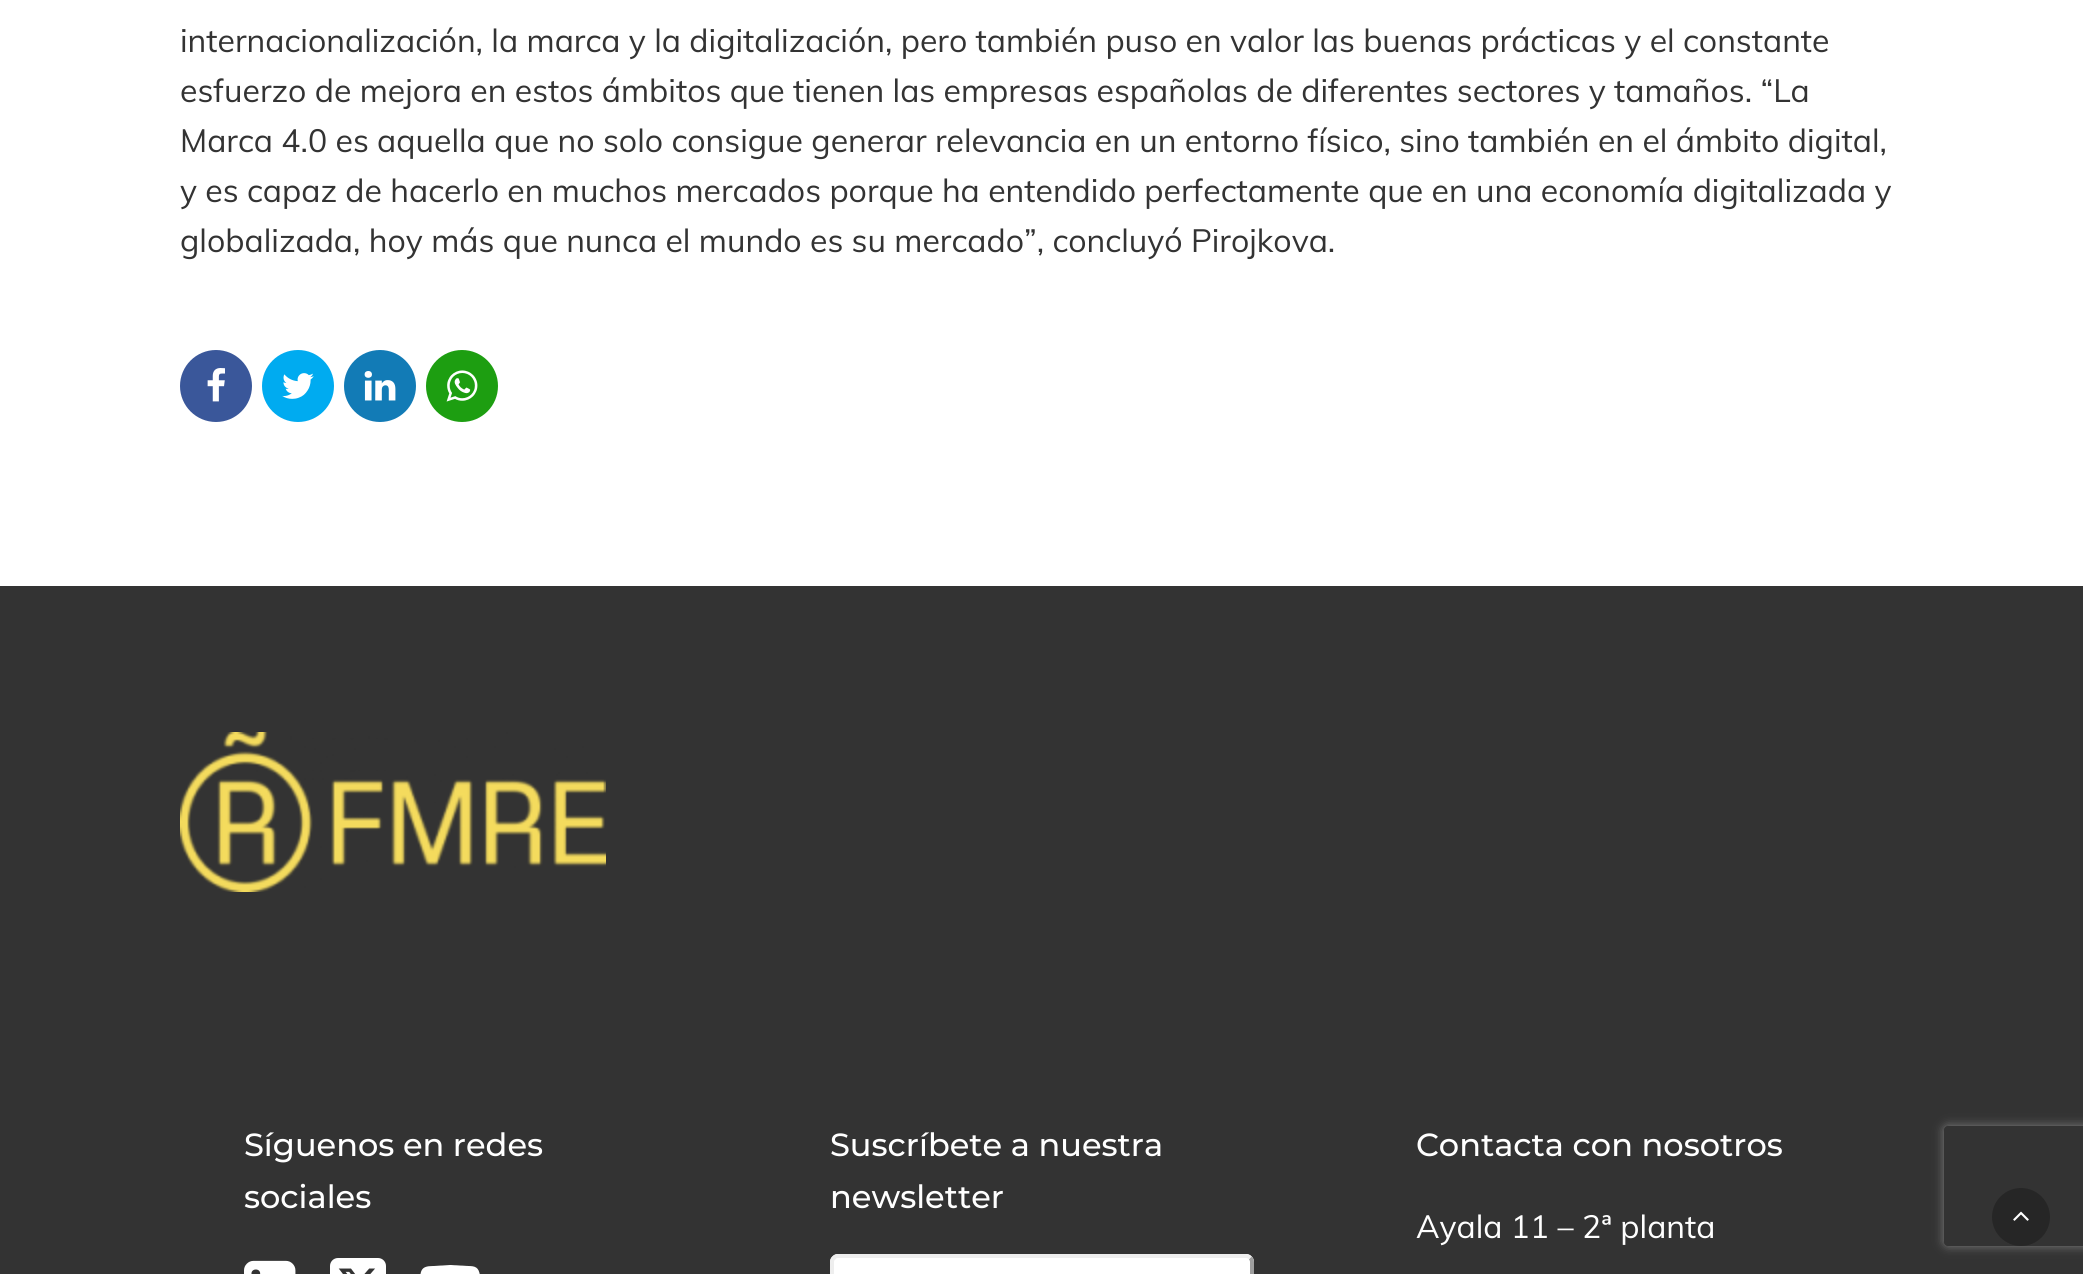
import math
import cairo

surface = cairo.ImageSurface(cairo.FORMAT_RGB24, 2083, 1274)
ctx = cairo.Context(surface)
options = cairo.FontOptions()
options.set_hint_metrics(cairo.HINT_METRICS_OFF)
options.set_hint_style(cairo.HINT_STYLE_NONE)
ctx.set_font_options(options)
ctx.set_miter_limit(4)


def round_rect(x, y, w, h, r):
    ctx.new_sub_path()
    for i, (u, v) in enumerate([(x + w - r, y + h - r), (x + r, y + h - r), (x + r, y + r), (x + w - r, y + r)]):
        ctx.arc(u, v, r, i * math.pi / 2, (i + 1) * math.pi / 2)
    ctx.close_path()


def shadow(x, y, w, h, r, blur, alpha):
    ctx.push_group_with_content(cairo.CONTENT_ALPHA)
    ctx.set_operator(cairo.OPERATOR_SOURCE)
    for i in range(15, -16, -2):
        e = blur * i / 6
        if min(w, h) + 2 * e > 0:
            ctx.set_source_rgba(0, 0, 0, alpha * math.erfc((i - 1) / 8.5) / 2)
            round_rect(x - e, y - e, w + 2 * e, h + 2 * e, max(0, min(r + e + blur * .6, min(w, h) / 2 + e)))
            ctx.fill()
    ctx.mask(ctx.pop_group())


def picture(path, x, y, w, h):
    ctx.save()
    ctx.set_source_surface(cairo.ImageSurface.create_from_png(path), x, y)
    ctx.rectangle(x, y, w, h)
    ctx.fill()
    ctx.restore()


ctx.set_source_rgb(1, 1, 1)
ctx.paint()
ctx.select_font_face("Muli")
ctx.set_font_size(32)
ctx.set_source_rgb(0.2, 0.2, 0.2)
ctx.move_to(180, 52)
ctx.show_text("internacionalización, la marca y la digitalización, pero también puso en valor las buenas prácticas y el constante")
ctx.move_to(180, 102)
ctx.show_text("esfuerzo de mejora en estos ámbitos que tienen las empresas españolas de diferentes sectores y tamaños. “La")
ctx.move_to(180, 152)
ctx.show_text("Marca 4.0 es aquella que no solo consigue generar relevancia en un entorno físico, sino también en el ámbito digital,")
ctx.move_to(180, 202)
ctx.show_text("y es capaz de hacerlo en muchos mercados porque ha entendido perfectamente que en una economía digitalizada y")
ctx.move_to(180, 252)
ctx.show_text("globalizada, hoy más que nunca el mundo es su mercado”, concluyó Pirojkova.")
ctx.set_source_rgb(0.227, 0.341, 0.604)
ctx.new_path()
ctx.arc(216, 386, 36, 0, 2 * math.pi)
ctx.fill()
picture("img1.png", 207, 368, 18, 34)
ctx.set_source_rgb(0, 0.671, 0.941)
ctx.arc(298, 386, 36, 0, 2 * math.pi)
ctx.fill()
picture("img2.png", 282, 373, 32, 26)
ctx.set_source_rgb(0.071, 0.482, 0.714)
ctx.arc(380, 386, 36, 0, 2 * math.pi)
ctx.fill()
picture("img3.png", 364, 371, 32, 30)
ctx.set_source_rgb(0.114, 0.62, 0.067)
ctx.arc(462, 386, 36, 0, 2 * math.pi)
ctx.fill()
picture("img4.png", 446, 370, 32, 32)
ctx.set_source_rgb(0.2, 0.2, 0.2)
ctx.rectangle(0, 586, 2083, 688)
ctx.fill()
picture("img5.png", 180, 732, 426, 160)
ctx.select_font_face("Montserrat Thin")
ctx.set_source_rgb(1, 1, 1)
ctx.move_to(244, 1156)
ctx.show_text("Síguenos en redes")
ctx.move_to(244, 1208)
ctx.show_text("sociales")
picture("img6.png", 244, 1260, 52, 14)
picture("img7.png", 330, 1258, 56, 16)
ctx.new_path()
ctx.move_to(444, 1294)
ctx.line_to(460, 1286)
ctx.line_to(444, 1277)
ctx.close_path()
ctx.move_to(450, 1265)
ctx.line_to(468, 1266)
ctx.curve_to(475, 1266, 479, 1267, 480, 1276)
ctx.line_to(480, 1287)
ctx.curve_to(480, 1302, 480, 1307, 467, 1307)
ctx.line_to(450, 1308)
ctx.line_to(433, 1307)
ctx.curve_to(418, 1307, 420, 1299, 420, 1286)
ctx.curve_to(420, 1271, 420, 1266, 433, 1266)
ctx.close_path()
ctx.fill()
ctx.move_to(830, 1156)
ctx.show_text("Suscríbete a nuestra")
ctx.move_to(830, 1208)
ctx.show_text("newsletter")
round_rect(830, 1254, 424, 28, 8)
ctx.fill()
ctx.new_path()
ctx.move_to(1250, 1258)
ctx.curve_to(1251.5, 1259, 1252, 1260.5, 1252, 1262)
ctx.line_to(1252, 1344)
ctx.curve_to(1252, 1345.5, 1251.5, 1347, 1250, 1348)
ctx.curve_to(1249, 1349.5, 1247.5, 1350, 1246, 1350)
ctx.line_to(838, 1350)
ctx.curve_to(836.5, 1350, 835, 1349.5, 834, 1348)
ctx.set_source_rgb(0.624, 0.624, 0.624)
ctx.set_line_width(4)
ctx.stroke()
ctx.new_path()
ctx.move_to(834, 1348)
ctx.curve_to(832.5, 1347, 832, 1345.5, 832, 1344)
ctx.line_to(832, 1262)
ctx.curve_to(832, 1260.5, 832.5, 1259, 834, 1258)
ctx.curve_to(835, 1256.5, 836.5, 1256, 838, 1256)
ctx.line_to(1246, 1256)
ctx.curve_to(1247.5, 1256, 1249, 1256.5, 1250, 1258)
ctx.set_source_rgb(0.933, 0.933, 0.933)
ctx.stroke()
ctx.set_source_rgb(1, 1, 1)
ctx.move_to(1416, 1156)
ctx.show_text("Contacta con nosotros")
ctx.select_font_face("Muli")
ctx.move_to(1416, 1238)
ctx.show_text("Ayala 11 – 2ª planta")
ctx.set_source_rgb(0.149, 0.149, 0.149)
ctx.new_path()
ctx.arc(2021, 1217, 29, 0, 2 * math.pi)
ctx.fill()
picture("img8.png", 2013, 1211, 16, 10)
ctx.save()
ctx.set_fill_rule(cairo.FILL_RULE_EVEN_ODD)
ctx.new_path()
ctx.move_to(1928, 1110)
ctx.line_to(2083, 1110)
ctx.line_to(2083, 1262)
ctx.line_to(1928, 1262)
ctx.close_path()
ctx.move_to(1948, 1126)
ctx.line_to(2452, 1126)
ctx.curve_to(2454, 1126, 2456, 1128, 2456, 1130)
ctx.line_to(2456, 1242)
ctx.curve_to(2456, 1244, 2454, 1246, 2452, 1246)
ctx.line_to(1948, 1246)
ctx.curve_to(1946, 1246, 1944, 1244, 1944, 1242)
ctx.line_to(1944, 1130)
ctx.curve_to(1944, 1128, 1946, 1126, 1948, 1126)
ctx.close_path()
ctx.clip()
ctx.set_source_rgb(0.502, 0.502, 0.502)
shadow(1944, 1126, 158, 120, 4, 5, 1)
ctx.restore()
surface.write_to_png("page.png")
